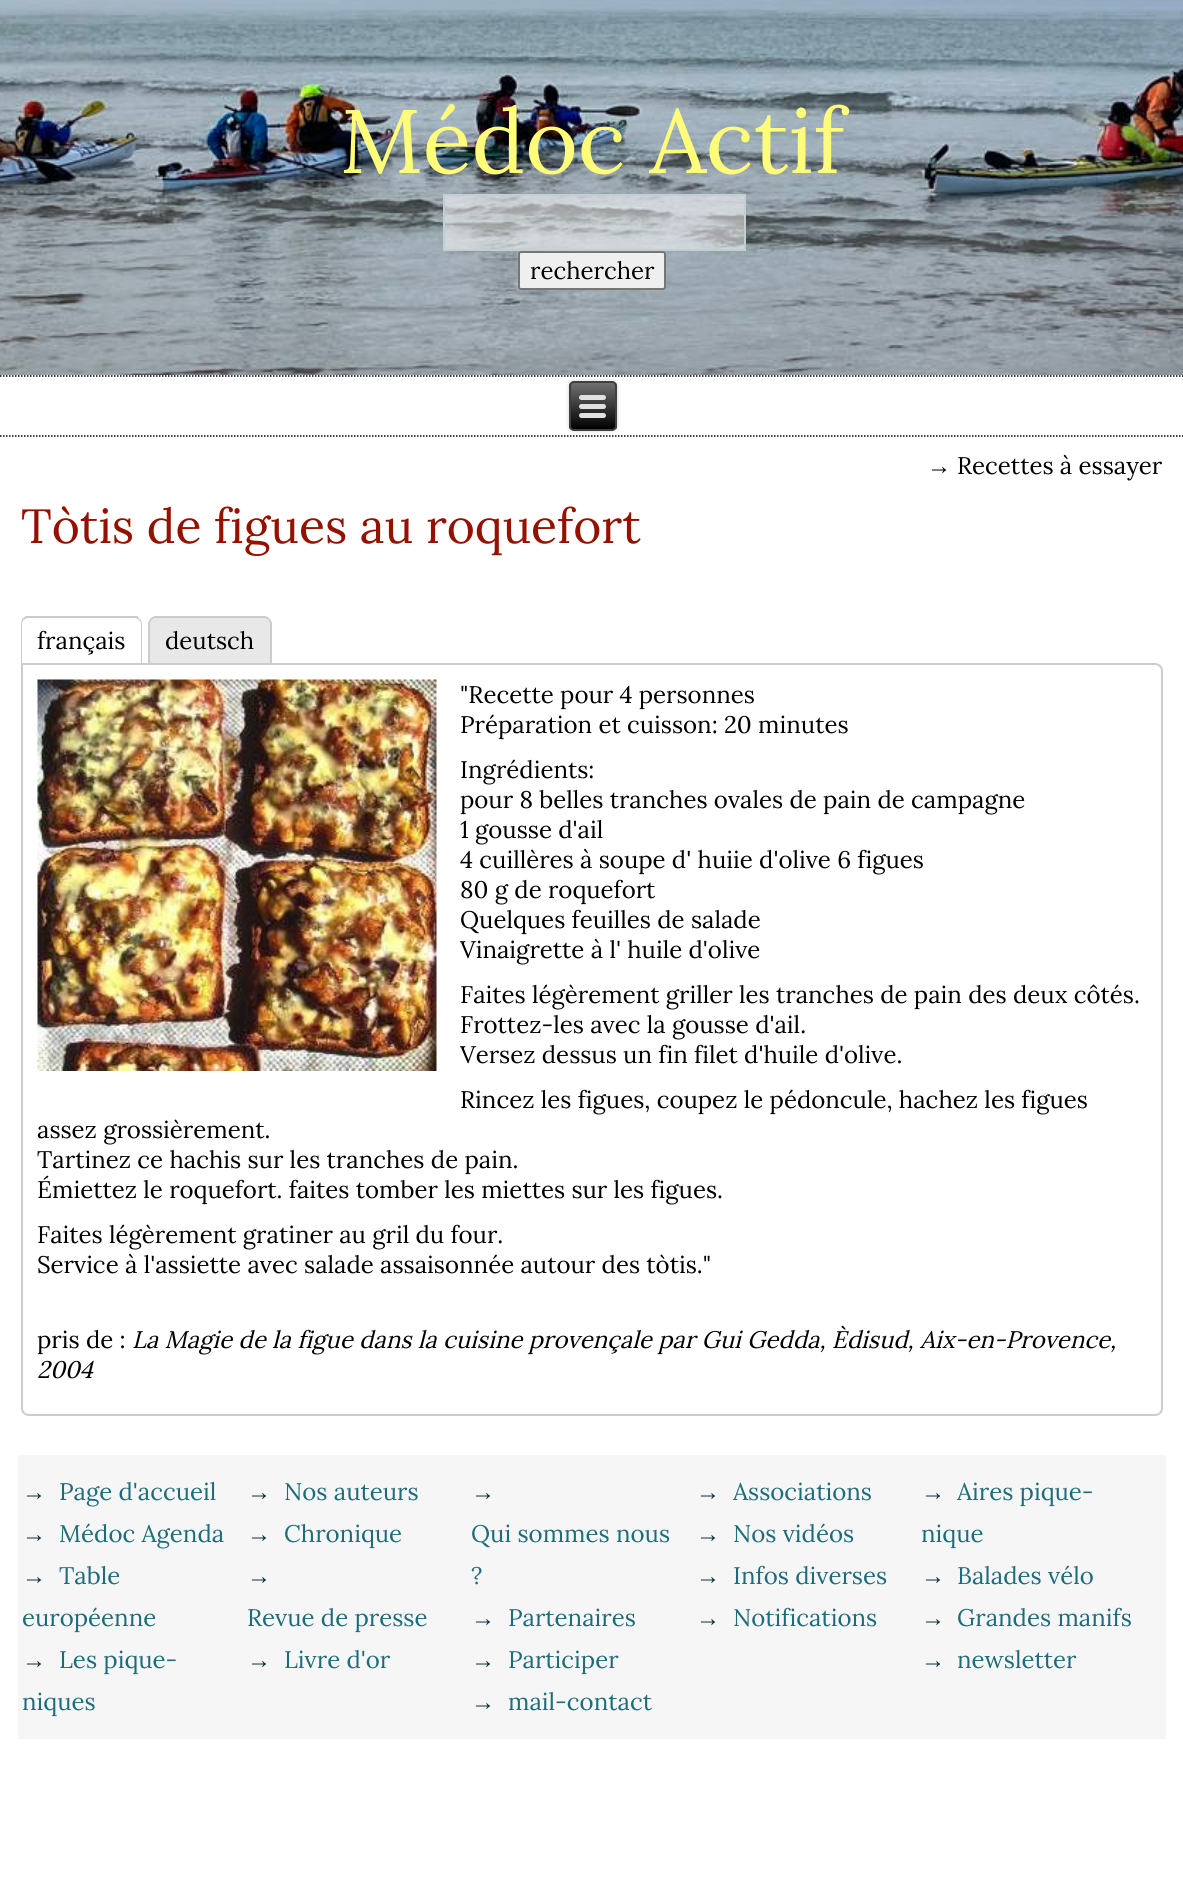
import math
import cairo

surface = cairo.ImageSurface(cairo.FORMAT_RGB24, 1183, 1882)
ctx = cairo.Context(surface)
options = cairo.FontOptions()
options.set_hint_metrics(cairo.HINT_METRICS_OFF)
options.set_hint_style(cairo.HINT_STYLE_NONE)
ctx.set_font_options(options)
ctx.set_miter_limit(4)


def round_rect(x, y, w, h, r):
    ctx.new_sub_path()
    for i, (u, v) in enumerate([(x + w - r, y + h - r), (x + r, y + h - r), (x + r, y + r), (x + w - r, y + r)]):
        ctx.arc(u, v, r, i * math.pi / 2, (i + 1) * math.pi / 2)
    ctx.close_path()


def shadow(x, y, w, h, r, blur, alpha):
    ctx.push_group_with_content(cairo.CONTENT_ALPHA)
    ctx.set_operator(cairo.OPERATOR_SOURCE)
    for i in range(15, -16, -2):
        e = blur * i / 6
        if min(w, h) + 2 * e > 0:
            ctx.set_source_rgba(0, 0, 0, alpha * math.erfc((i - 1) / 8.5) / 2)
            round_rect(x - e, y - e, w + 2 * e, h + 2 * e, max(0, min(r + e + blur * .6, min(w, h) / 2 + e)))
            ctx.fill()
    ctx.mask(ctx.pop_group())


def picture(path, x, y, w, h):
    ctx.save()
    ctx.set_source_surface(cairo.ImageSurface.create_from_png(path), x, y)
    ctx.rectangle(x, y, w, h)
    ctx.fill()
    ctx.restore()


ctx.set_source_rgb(1, 1, 1)
ctx.paint()
picture("img1.png", 0, 0, 1183, 375)
ctx.select_font_face("Lora")
ctx.set_font_size(90)
ctx.set_source_rgb(1, 0.988, 0.475)
ctx.move_to(340, 173)
ctx.show_text("Médoc Actif")
ctx.set_source_rgba(1, 1, 1, 0.5)
ctx.rectangle(444, 195, 301, 55)
ctx.fill_preserve()
ctx.set_source_rgb(0.757, 0.812, 0.82)
ctx.stroke()
ctx.set_source_rgb(0.937, 0.937, 0.937)
round_rect(519, 252, 146, 37, 2)
ctx.fill_preserve()
ctx.set_source_rgb(0.463, 0.463, 0.463)
ctx.stroke()
ctx.set_font_size(24)
ctx.set_source_rgb(0, 0, 0)
ctx.move_to(530, 279)
ctx.show_text("rechercher")
ctx.new_path()
ctx.move_to(0, 376)
ctx.line_to(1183.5, 376)
ctx.set_line_width(1.5)
ctx.set_dash([1.5, 1.5])
ctx.stroke()
ctx.new_path()
ctx.move_to(0, 436)
ctx.line_to(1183.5, 436)
ctx.stroke()
ctx.set_source_rgb(0, 0, 0)
shadow(569, 381, 48, 50, 5, 2, 0.2)
ctx.save()
round_rect(569, 381, 48, 50, 5)
ctx.clip()
gradient = cairo.LinearGradient(593, 383, 593, 429)
gradient.add_color_stop_rgba(0, 0.439, 0.439, 0.439, 1)
gradient.add_color_stop_rgba(1, 0, 0, 0, 1)
ctx.set_source(gradient)
ctx.rectangle(569, 383, 48, 46)
ctx.fill()
ctx.restore()
round_rect(570, 382, 46, 48, 4)
ctx.set_source_rgb(0.251, 0.251, 0.251)
ctx.set_line_width(2)
ctx.set_dash([])
ctx.stroke()
ctx.set_source_rgb(0.878, 0.878, 0.878)
round_rect(579, 395, 27, 5, 2.5)
ctx.fill()
round_rect(579, 404, 27, 5, 2.5)
ctx.fill()
round_rect(579, 413, 27, 5, 2.5)
ctx.fill()
ctx.select_font_face("Liberation Serif")
ctx.set_source_rgb(0, 0, 0)
ctx.move_to(927, 474)
ctx.show_text("→")
ctx.select_font_face("Lora")
ctx.move_to(957, 474)
ctx.show_text("Recettes à essayer")
ctx.set_font_size(48)
ctx.set_source_rgb(0.58, 0.067, 0)
ctx.move_to(21, 543)
ctx.show_text("Tòtis de figues au roquefort")
ctx.set_source_rgb(0.8, 0.8, 0.8)
ctx.new_path()
ctx.move_to(28, 618)
ctx.curve_to(27, 618, 25, 619, 24, 620)
ctx.line_to(23, 618)
ctx.line_to(26, 616)
ctx.line_to(137, 616)
ctx.line_to(140, 619)
ctx.line_to(139, 620)
ctx.curve_to(138, 619, 136, 618, 135, 618)
ctx.close_path()
ctx.fill()
ctx.new_path()
ctx.move_to(140, 619)
ctx.curve_to(141, 620, 142, 622, 142, 624)
ctx.line_to(142, 664)
ctx.line_to(141, 663)
ctx.line_to(141, 624)
ctx.curve_to(141, 622, 140, 621, 139, 620)
ctx.close_path()
ctx.fill()
ctx.new_path()
ctx.move_to(21, 624)
ctx.line_to(21, 664)
ctx.line_to(22, 663)
ctx.line_to(22, 624)
ctx.curve_to(22, 622, 23, 621, 24, 620)
ctx.line_to(23, 618)
ctx.curve_to(22, 620, 21, 622, 21, 624)
ctx.close_path()
ctx.fill()
ctx.set_font_size(24)
ctx.set_source_rgb(0, 0, 0)
ctx.move_to(37, 649)
ctx.show_text("français")
ctx.set_source_rgb(0.91, 0.91, 0.91)
ctx.new_path()
ctx.move_to(156, 618)
ctx.line_to(264, 618)
ctx.curve_to(267.5, 618, 270, 620.5, 270, 624)
ctx.line_to(270, 663)
ctx.line_to(150, 663)
ctx.line_to(150, 624)
ctx.curve_to(150, 620.5, 152.5, 618, 156, 618)
ctx.close_path()
ctx.fill()
ctx.set_source_rgb(0.8, 0.8, 0.8)
ctx.set_fill_rule(cairo.FILL_RULE_EVEN_ODD)
ctx.new_path()
ctx.move_to(156, 616)
ctx.line_to(264, 616)
ctx.curve_to(268, 616, 272, 620, 272, 624)
ctx.line_to(272, 663)
ctx.line_to(148, 663)
ctx.line_to(148, 624)
ctx.curve_to(148, 620, 152, 616, 156, 616)
ctx.close_path()
ctx.move_to(156, 618)
ctx.line_to(264, 618)
ctx.curve_to(267, 618, 270, 621, 270, 624)
ctx.line_to(270, 663)
ctx.line_to(150, 663)
ctx.line_to(150, 624)
ctx.curve_to(150, 621, 153, 618, 156, 618)
ctx.close_path()
ctx.fill()
ctx.set_source_rgb(0, 0, 0)
ctx.move_to(165, 649)
ctx.show_text("deutsch")
ctx.set_source_rgb(1, 1, 1)
ctx.new_path()
ctx.move_to(22, 664)
ctx.line_to(1155, 664)
ctx.curve_to(1159, 664, 1162, 667, 1162, 671)
ctx.line_to(1162, 1408)
ctx.curve_to(1162, 1412, 1159, 1415, 1155, 1415)
ctx.line_to(29, 1415)
ctx.curve_to(25, 1415, 22, 1412, 22, 1408)
ctx.close_path()
ctx.fill_preserve()
ctx.set_source_rgb(0.8, 0.8, 0.8)
ctx.stroke()
picture("img2.png", 37, 679, 400, 392)
ctx.set_source_rgb(0, 0, 0)
ctx.move_to(460, 703)
ctx.show_text("\"Recette pour 4 personnes")
ctx.move_to(460, 733)
ctx.show_text("Préparation et cuisson: 20 minutes")
ctx.move_to(460, 778)
ctx.show_text("Ingrédients:")
ctx.move_to(460, 808)
ctx.show_text("pour 8 belles tranches ovales de pain de campagne")
ctx.move_to(460, 838)
ctx.show_text("1 gousse d'ail")
ctx.move_to(460, 868)
ctx.show_text("4 cuillères à soupe d' huiie d'olive 6 figues")
ctx.move_to(460, 898)
ctx.show_text("80 g de roquefort")
ctx.move_to(460, 928)
ctx.show_text("Quelques feuilles de salade")
ctx.move_to(460, 958)
ctx.show_text("Vinaigrette à l' huile d'olive")
ctx.move_to(460, 1003)
ctx.show_text("Faites légèrement griller les tranches de pain des deux côtés.")
ctx.move_to(460, 1033)
ctx.show_text("Frottez-les avec la gousse d'ail.")
ctx.move_to(460, 1063)
ctx.show_text("Versez dessus un fin filet d'huile d'olive.")
ctx.move_to(460, 1108)
ctx.show_text("Rincez les figues, coupez le pédoncule, hachez les figues")
ctx.move_to(37, 1138)
ctx.show_text("assez grossièrement.")
ctx.move_to(37, 1168)
ctx.show_text("Tartinez ce hachis sur les tranches de pain.")
ctx.move_to(37, 1198)
ctx.show_text("Émiettez le roquefort. faites tomber les miettes sur les figues.")
ctx.move_to(37, 1243)
ctx.show_text("Faites légèrement gratiner au gril du four.")
ctx.move_to(37, 1273)
ctx.show_text("Service à l'assiette avec salade assaisonnée autour des tòtis.\"")
ctx.move_to(37, 1348)
ctx.show_text("pris de :")
ctx.select_font_face("Lora", cairo.FONT_SLANT_ITALIC)
ctx.move_to(132, 1348)
ctx.show_text("La Magie de la figue dans la cuisine provençale par Gui Gedda, Èdisud, Aix-en-Provence,")
ctx.move_to(37, 1378)
ctx.show_text("2004")
ctx.set_source_rgb(0.961, 0.961, 0.961)
ctx.rectangle(18, 1455, 1148, 284)
ctx.fill()
ctx.select_font_face("Liberation Serif")
ctx.set_source_rgb(0.055, 0.196, 0.224)
ctx.move_to(22, 1500)
ctx.show_text("→")
ctx.select_font_face("Lora")
ctx.set_source_rgb(0.118, 0.424, 0.482)
ctx.move_to(59, 1500)
ctx.show_text("Page d'accueil")
ctx.select_font_face("Liberation Serif")
ctx.set_source_rgb(0.055, 0.196, 0.224)
ctx.move_to(22, 1542)
ctx.show_text("→")
ctx.select_font_face("Lora")
ctx.set_source_rgb(0.118, 0.424, 0.482)
ctx.move_to(59, 1542)
ctx.show_text("Médoc Agenda")
ctx.select_font_face("Liberation Serif")
ctx.set_source_rgb(0.055, 0.196, 0.224)
ctx.move_to(22, 1584)
ctx.show_text("→")
ctx.select_font_face("Lora")
ctx.set_source_rgb(0.118, 0.424, 0.482)
ctx.move_to(59, 1584)
ctx.show_text("Table")
ctx.move_to(22, 1626)
ctx.show_text("européenne")
ctx.select_font_face("Liberation Serif")
ctx.set_source_rgb(0.055, 0.196, 0.224)
ctx.move_to(22, 1668)
ctx.show_text("→")
ctx.select_font_face("Lora")
ctx.set_source_rgb(0.118, 0.424, 0.482)
ctx.move_to(59, 1668)
ctx.show_text("Les pique-")
ctx.move_to(22, 1710)
ctx.show_text("niques")
ctx.select_font_face("Liberation Serif")
ctx.set_source_rgb(0.055, 0.196, 0.224)
ctx.move_to(247, 1500)
ctx.show_text("→")
ctx.select_font_face("Lora")
ctx.set_source_rgb(0.118, 0.424, 0.482)
ctx.move_to(284, 1500)
ctx.show_text("Nos auteurs")
ctx.select_font_face("Liberation Serif")
ctx.set_source_rgb(0.055, 0.196, 0.224)
ctx.move_to(247, 1542)
ctx.show_text("→")
ctx.select_font_face("Lora")
ctx.set_source_rgb(0.118, 0.424, 0.482)
ctx.move_to(284, 1542)
ctx.show_text("Chronique")
ctx.select_font_face("Liberation Serif")
ctx.set_source_rgb(0.055, 0.196, 0.224)
ctx.move_to(247, 1584)
ctx.show_text("→")
ctx.select_font_face("Lora")
ctx.set_source_rgb(0.118, 0.424, 0.482)
ctx.move_to(247, 1626)
ctx.show_text("Revue de presse")
ctx.select_font_face("Liberation Serif")
ctx.set_source_rgb(0.055, 0.196, 0.224)
ctx.move_to(247, 1668)
ctx.show_text("→")
ctx.select_font_face("Lora")
ctx.set_source_rgb(0.118, 0.424, 0.482)
ctx.move_to(284, 1668)
ctx.show_text("Livre d'or")
ctx.select_font_face("Liberation Serif")
ctx.set_source_rgb(0.055, 0.196, 0.224)
ctx.move_to(471, 1500)
ctx.show_text("→")
ctx.select_font_face("Lora")
ctx.set_source_rgb(0.118, 0.424, 0.482)
ctx.move_to(471, 1542)
ctx.show_text("Qui sommes nous")
ctx.move_to(471, 1584)
ctx.show_text("?")
ctx.select_font_face("Liberation Serif")
ctx.set_source_rgb(0.055, 0.196, 0.224)
ctx.move_to(471, 1626)
ctx.show_text("→")
ctx.select_font_face("Lora")
ctx.set_source_rgb(0.118, 0.424, 0.482)
ctx.move_to(508, 1626)
ctx.show_text("Partenaires")
ctx.select_font_face("Liberation Serif")
ctx.set_source_rgb(0.055, 0.196, 0.224)
ctx.move_to(471, 1668)
ctx.show_text("→")
ctx.select_font_face("Lora")
ctx.set_source_rgb(0.118, 0.424, 0.482)
ctx.move_to(508, 1668)
ctx.show_text("Participer")
ctx.select_font_face("Liberation Serif")
ctx.set_source_rgb(0.055, 0.196, 0.224)
ctx.move_to(471, 1710)
ctx.show_text("→")
ctx.select_font_face("Lora")
ctx.set_source_rgb(0.118, 0.424, 0.482)
ctx.move_to(508, 1710)
ctx.show_text("mail-contact")
ctx.select_font_face("Liberation Serif")
ctx.set_source_rgb(0.055, 0.196, 0.224)
ctx.move_to(696, 1500)
ctx.show_text("→")
ctx.select_font_face("Lora")
ctx.set_source_rgb(0.118, 0.424, 0.482)
ctx.move_to(733, 1500)
ctx.show_text("Associations")
ctx.select_font_face("Liberation Serif")
ctx.set_source_rgb(0.055, 0.196, 0.224)
ctx.move_to(696, 1542)
ctx.show_text("→")
ctx.select_font_face("Lora")
ctx.set_source_rgb(0.118, 0.424, 0.482)
ctx.move_to(733, 1542)
ctx.show_text("Nos vidéos")
ctx.select_font_face("Liberation Serif")
ctx.set_source_rgb(0.055, 0.196, 0.224)
ctx.move_to(696, 1584)
ctx.show_text("→")
ctx.select_font_face("Lora")
ctx.set_source_rgb(0.118, 0.424, 0.482)
ctx.move_to(733, 1584)
ctx.show_text("Infos diverses")
ctx.select_font_face("Liberation Serif")
ctx.set_source_rgb(0.055, 0.196, 0.224)
ctx.move_to(696, 1626)
ctx.show_text("→")
ctx.select_font_face("Lora")
ctx.set_source_rgb(0.118, 0.424, 0.482)
ctx.move_to(733, 1626)
ctx.show_text("Notifications")
ctx.select_font_face("Liberation Serif")
ctx.set_source_rgb(0.055, 0.196, 0.224)
ctx.move_to(921, 1500)
ctx.show_text("→")
ctx.select_font_face("Lora")
ctx.set_source_rgb(0.118, 0.424, 0.482)
ctx.move_to(957, 1500)
ctx.show_text("Aires pique-")
ctx.move_to(921, 1542)
ctx.show_text("nique")
ctx.select_font_face("Liberation Serif")
ctx.set_source_rgb(0.055, 0.196, 0.224)
ctx.move_to(921, 1584)
ctx.show_text("→")
ctx.select_font_face("Lora")
ctx.set_source_rgb(0.118, 0.424, 0.482)
ctx.move_to(957, 1584)
ctx.show_text("Balades vélo")
ctx.select_font_face("Liberation Serif")
ctx.set_source_rgb(0.055, 0.196, 0.224)
ctx.move_to(921, 1626)
ctx.show_text("→")
ctx.select_font_face("Lora")
ctx.set_source_rgb(0.118, 0.424, 0.482)
ctx.move_to(957, 1626)
ctx.show_text("Grandes manifs")
ctx.select_font_face("Liberation Serif")
ctx.set_source_rgb(0.055, 0.196, 0.224)
ctx.move_to(921, 1668)
ctx.show_text("→")
ctx.select_font_face("Lora")
ctx.set_source_rgb(0.118, 0.424, 0.482)
ctx.move_to(957, 1668)
ctx.show_text("newsletter")
surface.write_to_png("page.png")
